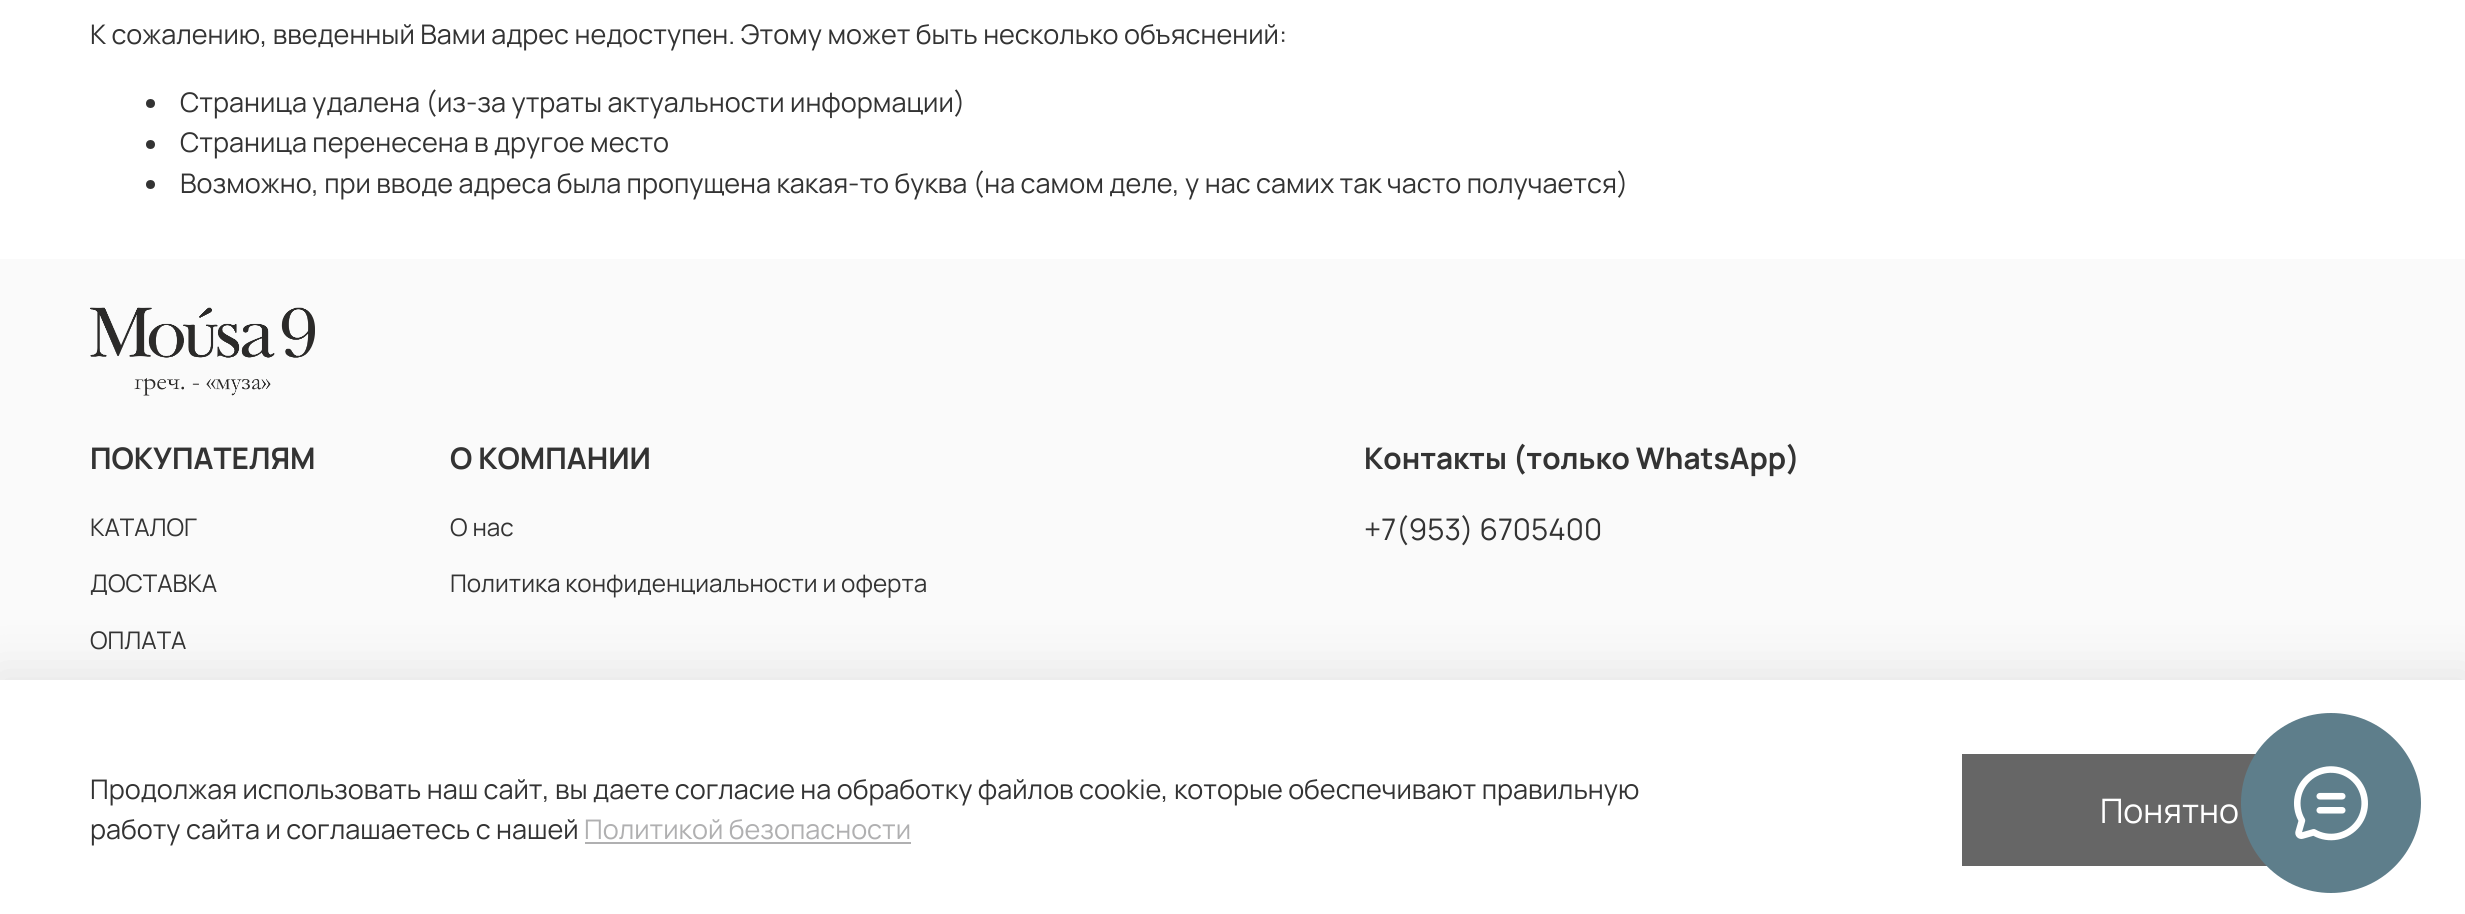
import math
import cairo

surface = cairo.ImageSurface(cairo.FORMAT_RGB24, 2465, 914)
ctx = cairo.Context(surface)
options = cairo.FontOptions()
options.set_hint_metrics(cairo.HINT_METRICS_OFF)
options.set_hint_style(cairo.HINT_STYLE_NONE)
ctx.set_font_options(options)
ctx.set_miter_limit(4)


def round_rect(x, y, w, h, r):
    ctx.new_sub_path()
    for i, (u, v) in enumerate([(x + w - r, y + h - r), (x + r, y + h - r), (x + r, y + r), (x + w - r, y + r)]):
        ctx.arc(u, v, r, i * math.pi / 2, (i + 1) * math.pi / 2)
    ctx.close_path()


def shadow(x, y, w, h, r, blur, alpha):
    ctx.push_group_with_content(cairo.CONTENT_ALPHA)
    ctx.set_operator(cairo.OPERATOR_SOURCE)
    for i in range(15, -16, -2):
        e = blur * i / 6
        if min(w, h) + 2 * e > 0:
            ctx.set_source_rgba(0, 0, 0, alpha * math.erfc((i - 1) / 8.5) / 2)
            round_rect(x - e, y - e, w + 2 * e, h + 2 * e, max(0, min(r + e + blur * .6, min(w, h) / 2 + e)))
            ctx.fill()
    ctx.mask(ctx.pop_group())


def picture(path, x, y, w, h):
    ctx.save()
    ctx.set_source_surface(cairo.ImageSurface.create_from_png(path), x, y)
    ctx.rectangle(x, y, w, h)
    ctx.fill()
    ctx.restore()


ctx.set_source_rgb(1, 1, 1)
ctx.paint()
ctx.select_font_face("Manrope")
ctx.set_font_size(27)
ctx.set_source_rgb(0.2, 0.2, 0.2)
ctx.move_to(90, 44)
ctx.show_text("К сожалению, введенный Вами адрес недоступен. Этому может быть несколько объяснений:")
ctx.new_path()
ctx.arc(150.5, 103.5, 4.5, 0, 2 * math.pi)
ctx.fill()
ctx.move_to(180, 112)
ctx.show_text("Страница удалена (из-за утраты актуальности информации)")
ctx.new_path()
ctx.arc(150.5, 144.5, 4.5, 0, 2 * math.pi)
ctx.fill()
ctx.move_to(180, 152)
ctx.show_text("Страница перенесена в другое место")
ctx.new_path()
ctx.arc(150.5, 184.5, 4.5, 0, 2 * math.pi)
ctx.fill()
ctx.move_to(180, 193)
ctx.show_text("Возможно, при вводе адреса была пропущена какая-то буква (на самом деле, у нас самих так часто получается)")
ctx.set_source_rgb(0.98, 0.98, 0.98)
ctx.rectangle(0, 259, 2465, 421)
ctx.fill()
picture("img1.png", 90, 307, 225, 89)
ctx.select_font_face("Manrope", cairo.FONT_SLANT_NORMAL, cairo.FONT_WEIGHT_BOLD)
ctx.set_font_size(29.75)
ctx.set_source_rgb(0.2, 0.2, 0.2)
ctx.move_to(90, 469)
ctx.show_text("ПОКУПАТЕЛЯМ")
ctx.select_font_face("Manrope")
ctx.set_font_size(24.25)
ctx.move_to(90, 536)
ctx.show_text("КАТАЛОГ")
ctx.move_to(90, 592)
ctx.show_text("ДОСТАВКА")
ctx.move_to(90, 649)
ctx.show_text("ОПЛАТА")
ctx.select_font_face("Manrope", cairo.FONT_SLANT_NORMAL, cairo.FONT_WEIGHT_BOLD)
ctx.set_font_size(29.75)
ctx.move_to(450, 469)
ctx.show_text("О КОМПАНИИ")
ctx.select_font_face("Manrope")
ctx.set_font_size(24.25)
ctx.move_to(450, 536)
ctx.show_text("О нас")
ctx.move_to(450, 592)
ctx.show_text("Политика конфиденциальности и оферта")
ctx.select_font_face("Manrope", cairo.FONT_SLANT_NORMAL, cairo.FONT_WEIGHT_BOLD)
ctx.set_font_size(29.75)
ctx.move_to(1364, 469)
ctx.show_text("Контакты (только WhatsApp)")
ctx.select_font_face("Manrope")
ctx.move_to(1364, 540)
ctx.show_text("+7(953) 6705400")
ctx.set_source_rgb(0, 0, 0)
shadow(-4, 673, 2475, 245, 0, 26, 0.09)
ctx.set_source_rgb(1, 1, 1)
ctx.rectangle(0, 680, 2465, 234)
ctx.fill()
ctx.set_font_size(27)
ctx.set_source_rgb(0.2, 0.2, 0.2)
ctx.move_to(90, 799)
ctx.show_text("Продолжая использовать наш сайт, вы даете согласие на обработку файлов cookie, которые обеспечивают правильную")
ctx.move_to(90, 839)
ctx.show_text("работу сайта и соглашаетесь с нашей")
ctx.set_source_rgb(0.69, 0.69, 0.694)
ctx.move_to(584, 839)
ctx.show_text("Политикой безопасности")
ctx.rectangle(585, 842, 326, 2)
ctx.fill()
ctx.set_source_rgb(0.4, 0.4, 0.4)
ctx.rectangle(1962, 754, 305, 112)
ctx.fill()
ctx.set_font_size(33.75)
ctx.set_source_rgb(1, 1, 1)
ctx.move_to(2100, 823)
ctx.show_text("Понятно")
ctx.set_source_rgb(0.369, 0.494, 0.545)
ctx.new_path()
ctx.arc(2331, 803, 90, 0, 2 * math.pi)
ctx.fill()
picture("img2.png", 2294, 766, 74, 75)
surface.write_to_png("page.png")
